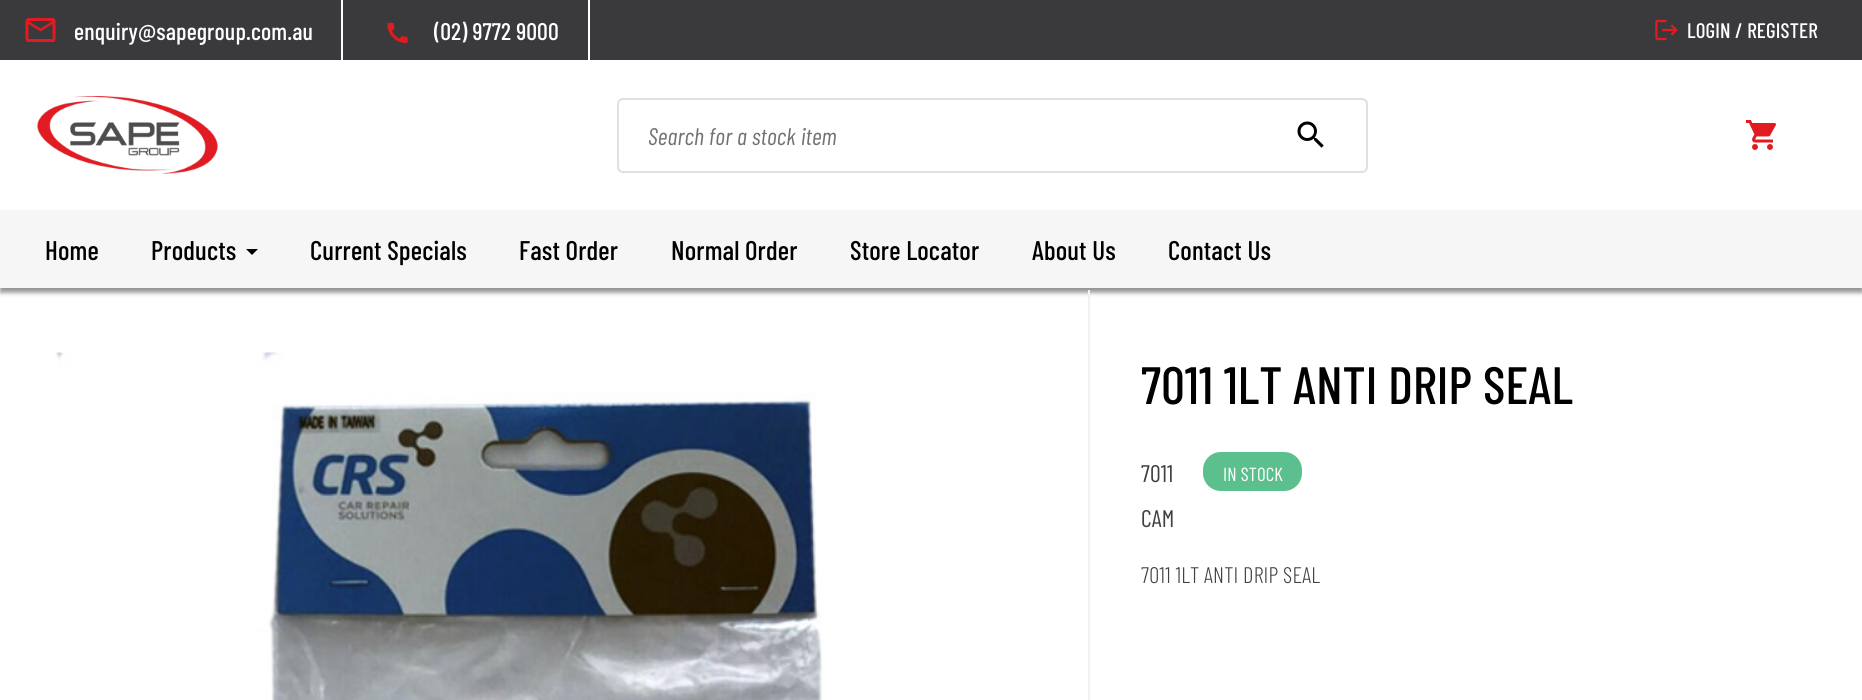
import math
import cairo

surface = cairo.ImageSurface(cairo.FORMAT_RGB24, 1862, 700)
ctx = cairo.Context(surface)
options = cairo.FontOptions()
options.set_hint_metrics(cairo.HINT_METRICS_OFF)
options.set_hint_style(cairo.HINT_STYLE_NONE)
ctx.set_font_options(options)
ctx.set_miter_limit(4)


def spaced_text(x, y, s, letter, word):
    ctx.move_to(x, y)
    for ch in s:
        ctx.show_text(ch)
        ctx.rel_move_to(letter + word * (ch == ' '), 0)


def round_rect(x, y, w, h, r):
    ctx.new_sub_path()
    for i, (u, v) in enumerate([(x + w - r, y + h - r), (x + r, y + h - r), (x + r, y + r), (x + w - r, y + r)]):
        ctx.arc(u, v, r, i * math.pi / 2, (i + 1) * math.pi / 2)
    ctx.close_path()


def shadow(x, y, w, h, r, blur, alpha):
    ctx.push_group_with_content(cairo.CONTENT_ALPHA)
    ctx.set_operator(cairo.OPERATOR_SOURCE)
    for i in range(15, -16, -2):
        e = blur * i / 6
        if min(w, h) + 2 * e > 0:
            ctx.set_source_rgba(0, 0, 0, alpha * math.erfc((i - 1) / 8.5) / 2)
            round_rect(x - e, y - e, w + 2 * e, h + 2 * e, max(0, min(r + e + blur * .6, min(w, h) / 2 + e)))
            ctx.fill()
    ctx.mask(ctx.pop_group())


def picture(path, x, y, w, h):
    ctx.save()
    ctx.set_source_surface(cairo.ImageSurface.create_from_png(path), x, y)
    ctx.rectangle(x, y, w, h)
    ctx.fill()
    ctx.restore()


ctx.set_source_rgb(1, 1, 1)
ctx.paint()
ctx.set_source_rgb(0.227, 0.227, 0.235)
ctx.rectangle(0, 0, 1862, 60)
ctx.fill()
picture("img1.png", 25, 18, 31, 24)
ctx.select_font_face("Barlow Condensed Medium")
ctx.set_font_size(24)
ctx.set_source_rgb(1, 1, 1)
spaced_text(74, 40, "enquiry@sapegroup.com.au", 0.15, 0)
ctx.rectangle(341, 0, 2, 63)
ctx.fill()
picture("img2.png", 387, 22, 21, 22)
spaced_text(434, 40, "(02) 9772 9000", 0.15, 0)
ctx.rectangle(588, 0, 2, 63)
ctx.fill()
picture("img3.png", 1655, 19, 23, 22)
ctx.set_font_size(21)
spaced_text(1687, 38, "LOGIN / REGISTER", 0.15, 0)
picture("img4.png", 37, 96, 181, 78)
round_rect(618, 99, 749, 73, 5)
ctx.set_source_rgb(0.878, 0.878, 0.878)
ctx.stroke()
ctx.select_font_face("Barlow Condensed", cairo.FONT_SLANT_ITALIC)
ctx.set_font_size(24)
ctx.set_source_rgb(0.443, 0.443, 0.443)
spaced_text(648, 145, "Search for a stock item", 0.15, 0)
picture("img5.png", 1297, 121, 27, 27)
picture("img6.png", 1745, 120, 31, 30)
ctx.set_source_rgb(0.945, 0.945, 0.945)
ctx.rectangle(0, 288, 1862, 2)
ctx.fill()
ctx.set_source_rgb(0, 0, 0)
shadow(0, 215, 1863, 78, 0, 2, 0.38)
ctx.set_source_rgb(0.961, 0.961, 0.961)
ctx.rectangle(0, 210, 1862, 78)
ctx.fill()
ctx.select_font_face("Barlow Condensed Medium")
ctx.set_font_size(27)
ctx.set_source_rgb(0, 0, 0)
spaced_text(45, 260, "Home", 0.15, 0)
spaced_text(151, 260, "Products", 0.15, 0)
ctx.new_path()
ctx.move_to(246, 249)
ctx.line_to(258, 249)
ctx.line_to(252, 255)
ctx.close_path()
ctx.fill()
spaced_text(310, 260, "Current Specials", 0.15, 0)
spaced_text(519, 260, "Fast Order", 0.15, 0)
spaced_text(671, 260, "Normal Order", 0.15, 0)
spaced_text(850, 260, "Store Locator", 0.15, 0)
spaced_text(1032, 260, "About Us", 0.15, 0)
spaced_text(1168, 260, "Contact Us", 0.15, 0)
picture("img7.png", 55, 352, 767, 348)
ctx.set_source_rgb(0.945, 0.945, 0.945)
ctx.rectangle(1088, 290, 2, 410)
ctx.fill()
ctx.set_font_size(52.5)
ctx.set_source_rgb(0, 0, 0)
spaced_text(1141, 404, "7011 1LT ANTI DRIP SEAL", 0.15, 0)
ctx.select_font_face("Barlow Condensed")
ctx.set_font_size(24)
ctx.set_source_rgb(0.251, 0.251, 0.251)
spaced_text(1141, 482, "7011", 0.15, 0)
ctx.set_source_rgb(0.361, 0.749, 0.557)
round_rect(1203, 452, 99, 39, 18)
ctx.fill()
ctx.set_font_size(19)
ctx.set_source_rgb(1, 1, 1)
spaced_text(1223, 481, "IN STOCK", 0.15, 0)
ctx.set_font_size(24)
ctx.set_source_rgb(0.251, 0.251, 0.251)
spaced_text(1141, 527, "CAM", 0.15, 0)
ctx.select_font_face("Barlow Condensed Light")
ctx.set_font_size(22.5)
spaced_text(1141, 583, "7011 1LT ANTI DRIP SEAL", 0.15, 0)
surface.write_to_png("page.png")
